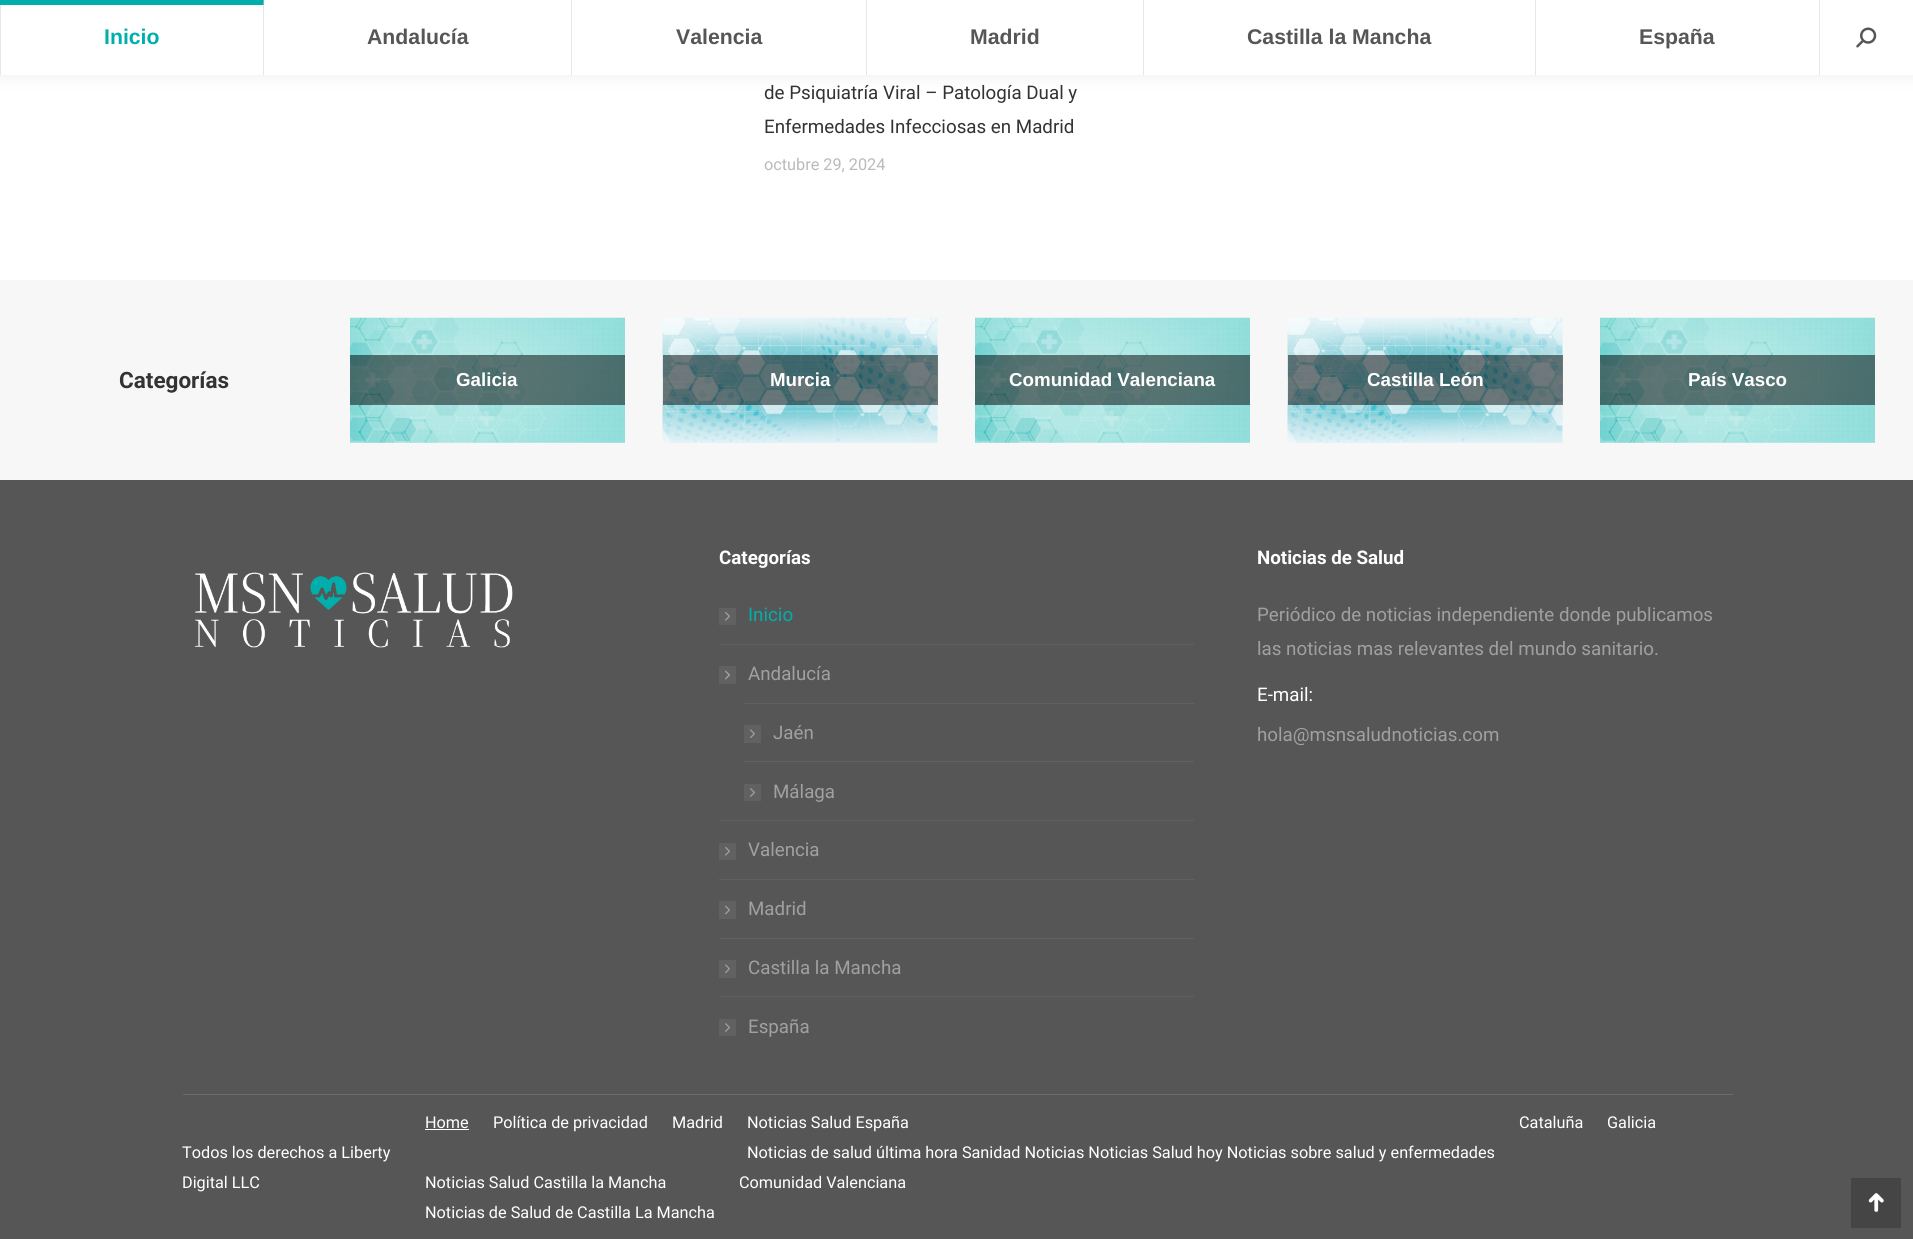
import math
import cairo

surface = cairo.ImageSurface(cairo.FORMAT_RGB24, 1913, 1239)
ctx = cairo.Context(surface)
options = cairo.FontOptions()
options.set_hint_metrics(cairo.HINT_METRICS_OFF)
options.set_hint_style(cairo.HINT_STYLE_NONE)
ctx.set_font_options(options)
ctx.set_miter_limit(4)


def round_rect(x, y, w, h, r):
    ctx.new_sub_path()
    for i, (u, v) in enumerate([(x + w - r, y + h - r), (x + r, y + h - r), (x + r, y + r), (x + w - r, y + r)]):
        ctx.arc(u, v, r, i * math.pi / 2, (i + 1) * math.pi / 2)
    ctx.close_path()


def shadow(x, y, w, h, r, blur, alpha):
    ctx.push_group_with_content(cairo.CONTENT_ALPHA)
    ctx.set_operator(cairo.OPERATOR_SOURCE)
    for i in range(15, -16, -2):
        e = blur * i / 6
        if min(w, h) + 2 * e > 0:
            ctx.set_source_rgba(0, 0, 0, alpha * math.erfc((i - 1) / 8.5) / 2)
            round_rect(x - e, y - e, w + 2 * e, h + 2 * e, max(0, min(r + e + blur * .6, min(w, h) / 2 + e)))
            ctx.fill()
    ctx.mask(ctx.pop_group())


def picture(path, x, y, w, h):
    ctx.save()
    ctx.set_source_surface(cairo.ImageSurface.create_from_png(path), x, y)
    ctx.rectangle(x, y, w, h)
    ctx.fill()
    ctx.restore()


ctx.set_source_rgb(1, 1, 1)
ctx.paint()
ctx.set_source_rgb(0, 0, 0)
shadow(-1, -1, 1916, 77, 0, 9.5, 0.07)
ctx.set_source_rgb(1, 1, 1)
ctx.rectangle(1, 0, 1912, 75)
ctx.fill()
ctx.set_source_rgb(0.902, 0.902, 0.902)
ctx.rectangle(263, 0, 1, 75)
ctx.fill()
ctx.rectangle(0, 0, 1, 75)
ctx.fill()
ctx.set_source_rgb(0, 0.686, 0.675)
ctx.rectangle(0, 0, 264, 5)
ctx.fill()
ctx.set_source_rgb(0.4, 0.745, 0.737)
ctx.rectangle(263, 0, 1, 5)
ctx.fill()
ctx.select_font_face("Liberation Sans", cairo.FONT_SLANT_NORMAL, cairo.FONT_WEIGHT_BOLD)
ctx.set_font_size(21.25)
ctx.set_source_rgb(0, 0.686, 0.675)
ctx.move_to(104, 44)
ctx.show_text("Inicio")
ctx.set_source_rgb(0.341, 0.337, 0.337)
ctx.move_to(367, 44)
ctx.show_text("Andalucía")
ctx.set_source_rgb(0.902, 0.902, 0.902)
ctx.rectangle(571, 0, 1, 75)
ctx.fill()
ctx.set_source_rgb(0.341, 0.337, 0.337)
ctx.move_to(676, 44)
ctx.show_text("Valencia")
ctx.set_source_rgb(0.902, 0.902, 0.902)
ctx.rectangle(866, 0, 1, 75)
ctx.fill()
ctx.set_source_rgb(0.341, 0.337, 0.337)
ctx.move_to(970, 44)
ctx.show_text("Madrid")
ctx.set_source_rgb(0.902, 0.902, 0.902)
ctx.rectangle(1143, 0, 1, 75)
ctx.fill()
ctx.set_source_rgb(0.341, 0.337, 0.337)
ctx.move_to(1247, 44)
ctx.show_text("Castilla la Mancha")
ctx.set_source_rgb(0.902, 0.902, 0.902)
ctx.rectangle(1535, 0, 1, 75)
ctx.fill()
ctx.set_source_rgb(0.341, 0.337, 0.337)
ctx.move_to(1639, 44)
ctx.show_text("España")
ctx.set_source_rgb(0.902, 0.902, 0.902)
ctx.rectangle(1819, 0, 1, 75)
ctx.fill()
picture("img1.png", 1856, 27, 21, 21)
ctx.select_font_face("Roboto")
ctx.set_font_size(18.75)
ctx.set_source_rgb(0.2, 0.2, 0.2)
ctx.move_to(764, 99)
ctx.show_text("de Psiquiatría Viral – Patología Dual y")
ctx.move_to(764, 133)
ctx.show_text("Enfermedades Infecciosas en Madrid")
ctx.set_font_size(16.25)
ctx.set_source_rgb(0.729, 0.729, 0.729)
ctx.move_to(764, 170)
ctx.show_text("octubre 29, 2024")
ctx.set_source_rgb(0.965, 0.965, 0.965)
ctx.rectangle(0, 280, 1913, 200)
ctx.fill()
ctx.select_font_face("Roboto", cairo.FONT_SLANT_NORMAL, cairo.FONT_WEIGHT_BOLD)
ctx.set_font_size(22.5)
ctx.set_source_rgb(0.2, 0.2, 0.2)
ctx.move_to(119, 388)
ctx.show_text("Categorías")
picture("img2.png", 350, 317, 275, 126)
ctx.set_source_rgba(0, 0, 0, 0.5)
ctx.rectangle(350, 355, 275, 50)
ctx.fill()
ctx.select_font_face("Liberation Sans", cairo.FONT_SLANT_NORMAL, cairo.FONT_WEIGHT_BOLD)
ctx.set_font_size(18.75)
ctx.set_source_rgb(1, 1, 1)
ctx.move_to(456, 386)
ctx.show_text("Galicia")
picture("img3.png", 662, 317, 276, 126)
ctx.set_source_rgba(0, 0, 0, 0.5)
ctx.rectangle(663, 355, 275, 50)
ctx.fill()
ctx.set_source_rgb(1, 1, 1)
ctx.move_to(770, 386)
ctx.show_text("Murcia")
picture("img2.png", 975, 317, 275, 126)
ctx.set_source_rgba(0, 0, 0, 0.5)
ctx.rectangle(975, 355, 275, 50)
ctx.fill()
ctx.set_source_rgb(1, 1, 1)
ctx.move_to(1009, 386)
ctx.show_text("Comunidad Valenciana")
picture("img3.png", 1287, 317, 276, 126)
ctx.set_source_rgba(0, 0, 0, 0.5)
ctx.rectangle(1288, 355, 275, 50)
ctx.fill()
ctx.set_source_rgb(1, 1, 1)
ctx.move_to(1367, 386)
ctx.show_text("Castilla León")
picture("img2.png", 1600, 317, 275, 126)
ctx.set_source_rgba(0, 0, 0, 0.5)
ctx.rectangle(1600, 355, 275, 50)
ctx.fill()
ctx.set_source_rgb(1, 1, 1)
ctx.move_to(1688, 386)
ctx.show_text("País Vasco")
ctx.set_source_rgb(0.341, 0.337, 0.337)
ctx.rectangle(0, 480, 1913, 759)
ctx.fill()
picture("img4.png", 195, 572, 318, 76)
ctx.select_font_face("Roboto", cairo.FONT_SLANT_NORMAL, cairo.FONT_WEIGHT_BOLD)
ctx.set_source_rgb(1, 1, 1)
ctx.move_to(719, 564)
ctx.show_text("Categorías")
ctx.set_source_rgb(0.384, 0.38, 0.38)
ctx.rectangle(719, 608, 17, 17)
ctx.fill()
ctx.select_font_face("Roboto")
ctx.set_source_rgb(0, 0.686, 0.675)
ctx.move_to(748, 621)
ctx.show_text("Inicio")
picture("img5.png", 725, 612, 5, 9)
ctx.set_source_rgb(0.384, 0.38, 0.38)
ctx.rectangle(719, 644, 475, 1)
ctx.fill()
ctx.rectangle(719, 666, 17, 18)
ctx.fill()
ctx.set_source_rgb(0.627, 0.627, 0.627)
ctx.move_to(748, 680)
ctx.show_text("Andalucía")
picture("img6.png", 725, 670, 5, 10)
picture("img7.png", 725, 670, 5, 10)
ctx.set_source_rgb(0.384, 0.38, 0.38)
ctx.rectangle(744, 703, 450, 1)
ctx.fill()
ctx.rectangle(744, 725, 17, 18)
ctx.fill()
ctx.set_source_rgb(0.627, 0.627, 0.627)
ctx.move_to(773, 739)
ctx.show_text("Jaén")
picture("img8.png", 750, 729, 5, 9)
ctx.set_source_rgb(0.384, 0.38, 0.38)
ctx.rectangle(744, 761, 450, 1)
ctx.fill()
ctx.rectangle(744, 784, 17, 17)
ctx.fill()
ctx.set_source_rgb(0.627, 0.627, 0.627)
ctx.move_to(773, 798)
ctx.show_text("Málaga")
picture("img9.png", 750, 788, 5, 9)
ctx.set_source_rgb(0.384, 0.38, 0.38)
ctx.rectangle(719, 820, 475, 1)
ctx.fill()
ctx.rectangle(719, 843, 17, 17)
ctx.fill()
ctx.set_source_rgb(0.627, 0.627, 0.627)
ctx.move_to(748, 856)
ctx.show_text("Valencia")
picture("img5.png", 725, 847, 5, 9)
ctx.set_source_rgb(0.384, 0.38, 0.38)
ctx.rectangle(719, 879, 475, 1)
ctx.fill()
ctx.rectangle(719, 901, 17, 18)
ctx.fill()
ctx.set_source_rgb(0.627, 0.627, 0.627)
ctx.move_to(748, 915)
ctx.show_text("Madrid")
picture("img10.png", 725, 905, 5, 10)
ctx.set_source_rgb(0.384, 0.38, 0.38)
ctx.rectangle(719, 938, 475, 1)
ctx.fill()
ctx.rectangle(719, 960, 17, 18)
ctx.fill()
ctx.set_source_rgb(0.627, 0.627, 0.627)
ctx.move_to(748, 974)
ctx.show_text("Castilla la Mancha")
picture("img8.png", 725, 964, 5, 9)
ctx.set_source_rgb(0.384, 0.38, 0.38)
ctx.rectangle(719, 996, 475, 1)
ctx.fill()
ctx.rectangle(719, 1019, 17, 17)
ctx.fill()
ctx.set_source_rgb(0.627, 0.627, 0.627)
ctx.move_to(748, 1033)
ctx.show_text("España")
picture("img9.png", 725, 1023, 5, 9)
ctx.select_font_face("Roboto", cairo.FONT_SLANT_NORMAL, cairo.FONT_WEIGHT_BOLD)
ctx.set_source_rgb(1, 1, 1)
ctx.move_to(1257, 564)
ctx.show_text("Noticias de Salud")
ctx.select_font_face("Roboto")
ctx.set_source_rgb(0.627, 0.627, 0.627)
ctx.move_to(1257, 621)
ctx.show_text("Periódico de noticias independiente donde publicamos")
ctx.move_to(1257, 655)
ctx.show_text("las noticias mas relevantes del mundo sanitario.")
ctx.set_source_rgb(1, 1, 1)
ctx.move_to(1257, 701)
ctx.show_text("E-mail:")
ctx.set_source_rgb(0.627, 0.627, 0.627)
ctx.move_to(1257, 741)
ctx.show_text("hola@msnsaludnoticias.com")
ctx.set_source_rgb(0.427, 0.424, 0.424)
ctx.rectangle(183, 1094, 1550, 1)
ctx.fill()
ctx.set_font_size(16.25)
ctx.set_source_rgb(1, 1, 1)
ctx.move_to(182, 1158)
ctx.show_text("Todos los derechos a Liberty")
ctx.move_to(182, 1188)
ctx.show_text("Digital LLC")
ctx.move_to(425, 1128)
ctx.show_text("Home")
ctx.rectangle(425, 1129, 44, 1)
ctx.fill()
ctx.move_to(493, 1128)
ctx.show_text("Política de privacidad")
ctx.move_to(672, 1128)
ctx.show_text("Madrid")
ctx.move_to(747, 1128)
ctx.show_text("Noticias Salud España")
ctx.move_to(747, 1158)
ctx.show_text("Noticias de salud última hora Sanidad Noticias Noticias Salud hoy Noticias sobre salud y enfermedades")
ctx.move_to(1519, 1128)
ctx.show_text("Cataluña")
ctx.move_to(1607, 1128)
ctx.show_text("Galicia")
ctx.move_to(425, 1188)
ctx.show_text("Noticias Salud Castilla la Mancha")
ctx.move_to(425, 1218)
ctx.show_text("Noticias de Salud de Castilla La Mancha")
ctx.move_to(739, 1188)
ctx.show_text("Comunidad Valenciana")
ctx.set_source_rgb(0.275, 0.271, 0.271)
ctx.rectangle(1851, 1178, 50, 50)
ctx.fill()
picture("img11.png", 1868, 1193, 16, 19)
surface.write_to_png("page.png")
